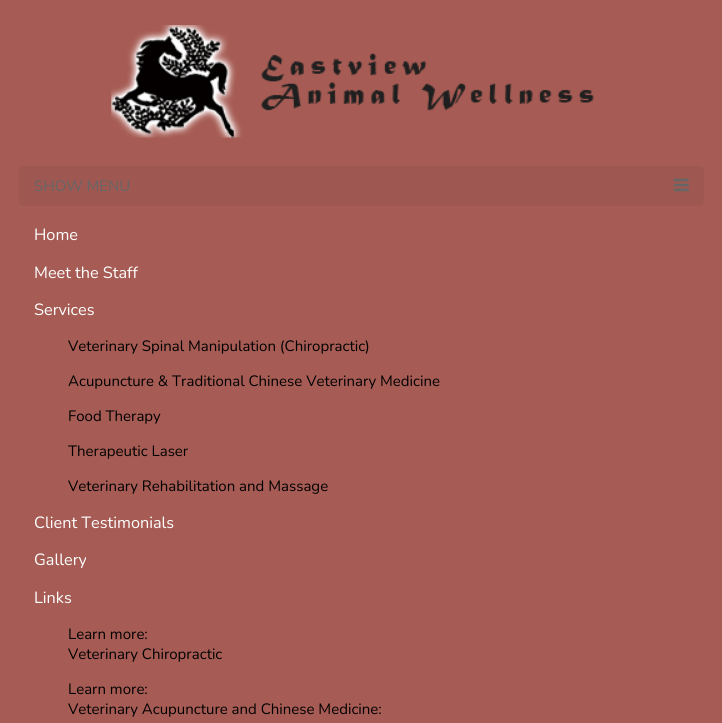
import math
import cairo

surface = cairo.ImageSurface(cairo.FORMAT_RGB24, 722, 723)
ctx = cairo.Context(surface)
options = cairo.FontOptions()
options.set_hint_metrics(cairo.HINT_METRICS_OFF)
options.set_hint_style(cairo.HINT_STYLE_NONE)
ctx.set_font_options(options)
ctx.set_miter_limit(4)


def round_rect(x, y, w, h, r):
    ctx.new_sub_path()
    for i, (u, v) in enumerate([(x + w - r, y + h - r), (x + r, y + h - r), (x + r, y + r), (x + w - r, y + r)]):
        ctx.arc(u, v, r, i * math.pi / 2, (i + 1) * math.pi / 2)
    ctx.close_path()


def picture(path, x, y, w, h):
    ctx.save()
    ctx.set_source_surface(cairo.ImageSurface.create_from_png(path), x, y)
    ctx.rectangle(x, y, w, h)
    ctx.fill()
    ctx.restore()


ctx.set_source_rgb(0.651, 0.361, 0.329)
ctx.paint()
picture("img1.png", 111, 25, 483, 113)
ctx.set_source_rgb(0.624, 0.345, 0.318)
round_rect(19, 166, 685, 40, 4)
ctx.fill()
ctx.select_font_face("Nunito ExtraLight")
ctx.set_font_size(15)
ctx.set_source_rgb(0.4, 0.4, 0.4)
ctx.move_to(34, 191)
ctx.show_text("SHOW MENU")
picture("img2.png", 673, 178, 16, 14)
ctx.set_font_size(16.25)
ctx.set_source_rgb(1, 1, 1)
ctx.move_to(34, 240)
ctx.show_text("Home")
ctx.move_to(34, 278)
ctx.show_text("Meet the Staff")
ctx.move_to(34, 315)
ctx.show_text("Services")
ctx.set_font_size(15)
ctx.set_source_rgb(0, 0, 0)
ctx.move_to(68, 351)
ctx.show_text("Veterinary Spinal Manipulation (Chiropractic)")
ctx.move_to(68, 386)
ctx.show_text("Acupuncture & Traditional Chinese Veterinary Medicine")
ctx.move_to(68, 421)
ctx.show_text("Food Therapy")
ctx.move_to(68, 456)
ctx.show_text("Therapeutic Laser")
ctx.move_to(68, 491)
ctx.show_text("Veterinary Rehabilitation and Massage")
ctx.set_font_size(16.25)
ctx.set_source_rgb(1, 1, 1)
ctx.move_to(34, 528)
ctx.show_text("Client Testimonials")
ctx.move_to(34, 565)
ctx.show_text("Gallery")
ctx.move_to(34, 603)
ctx.show_text("Links")
ctx.set_font_size(15)
ctx.set_source_rgb(0, 0, 0)
ctx.move_to(68, 639)
ctx.show_text("Learn more:")
ctx.move_to(68, 659)
ctx.show_text("Veterinary Chiropractic")
ctx.move_to(68, 694)
ctx.show_text("Learn more:")
ctx.move_to(68, 714)
ctx.show_text("Veterinary Acupuncture and Chinese Medicine:")
surface.write_to_png("page.png")
